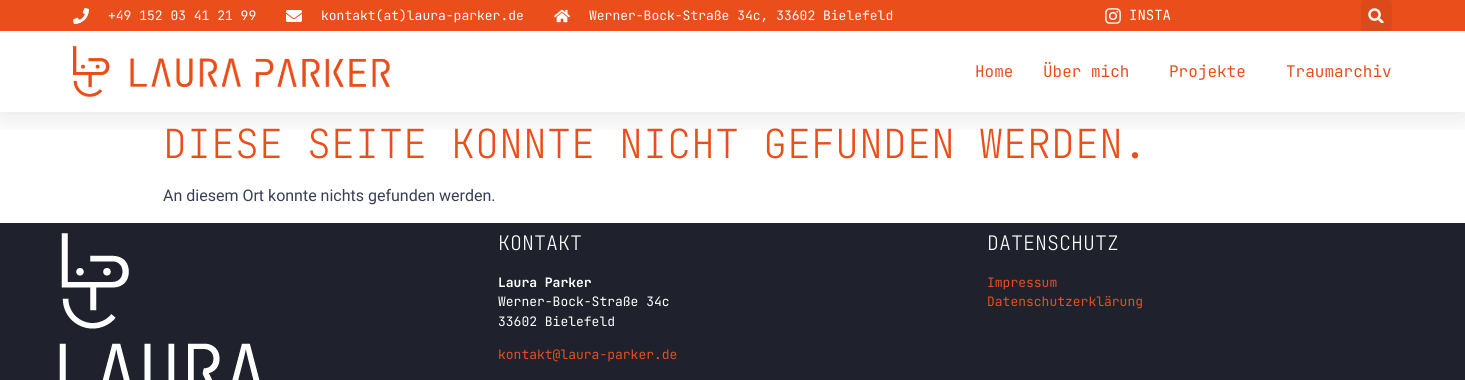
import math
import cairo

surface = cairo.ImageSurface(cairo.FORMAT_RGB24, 1465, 380)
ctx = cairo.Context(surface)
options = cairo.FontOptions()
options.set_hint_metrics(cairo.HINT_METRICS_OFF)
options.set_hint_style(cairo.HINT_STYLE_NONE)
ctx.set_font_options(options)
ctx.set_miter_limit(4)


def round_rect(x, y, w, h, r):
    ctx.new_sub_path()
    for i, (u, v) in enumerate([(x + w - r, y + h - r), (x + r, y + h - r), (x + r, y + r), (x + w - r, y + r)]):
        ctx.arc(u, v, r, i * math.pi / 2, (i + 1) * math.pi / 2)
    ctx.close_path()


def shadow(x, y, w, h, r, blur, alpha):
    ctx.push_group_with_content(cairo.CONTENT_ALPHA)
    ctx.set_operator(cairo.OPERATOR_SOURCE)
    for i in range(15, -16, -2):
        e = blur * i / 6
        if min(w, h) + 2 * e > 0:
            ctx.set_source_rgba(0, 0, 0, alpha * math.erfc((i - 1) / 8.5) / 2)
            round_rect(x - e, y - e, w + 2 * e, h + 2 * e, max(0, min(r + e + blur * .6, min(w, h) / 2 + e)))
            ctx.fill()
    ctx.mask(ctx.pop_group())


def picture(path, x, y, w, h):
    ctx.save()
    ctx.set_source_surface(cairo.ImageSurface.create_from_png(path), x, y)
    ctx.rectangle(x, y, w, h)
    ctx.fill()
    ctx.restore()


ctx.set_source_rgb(1, 1, 1)
ctx.paint()
ctx.save()
ctx.rectangle(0, 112, 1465, 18)
ctx.clip()
ctx.set_source_rgb(0, 0, 0)
shadow(0, 5, 1465, 112, 0, 15, 0.1)
ctx.restore()
ctx.set_source_rgb(0.914, 0.306, 0.106)
ctx.rectangle(0, 0, 1465, 31)
ctx.fill()
picture("img1.png", 73, 8, 16, 16)
ctx.select_font_face("JetBrains Mono")
ctx.set_font_size(13)
ctx.set_source_rgb(1, 1, 1)
ctx.move_to(108, 20)
ctx.show_text("+49 152 03 41 21 99")
picture("img2.png", 286, 10, 16, 12)
ctx.move_to(321, 20)
ctx.show_text("kontakt(at)laura-parker.de")
picture("img3.png", 554, 9, 16, 14)
ctx.move_to(589, 20)
ctx.show_text("Werner-Bock-Straße 34c, 33602 Bielefeld")
picture("img4.png", 1105, 8, 16, 16)
ctx.set_font_size(14)
ctx.move_to(1129, 20)
ctx.show_text("INSTA")
ctx.set_source_rgb(0.867, 0.29, 0.102)
round_rect(1361, 0, 31, 31, 3)
ctx.fill()
picture("img5.png", 1368, 8, 16, 15)
picture("img6.png", 73, 45, 317, 52)
ctx.set_font_size(16)
ctx.set_source_rgb(0.914, 0.306, 0.106)
ctx.move_to(975, 77)
ctx.show_text("Home")
ctx.move_to(1043, 77)
ctx.show_text("Über mich")
ctx.move_to(1169, 77)
ctx.show_text("Projekte")
ctx.move_to(1286, 77)
ctx.show_text("Traumarchiv")
ctx.select_font_face("JetBrains Mono ExtraLight")
ctx.set_font_size(40)
ctx.move_to(163, 158)
ctx.show_text("DIESE SEITE KONNTE NICHT GEFUNDEN WERDEN.")
ctx.select_font_face("Roboto")
ctx.set_font_size(16)
ctx.set_source_rgb(0.224, 0.239, 0.337)
ctx.move_to(163, 201)
ctx.show_text("An diesem Ort konnte nichts gefunden werden.")
ctx.set_source_rgb(0.122, 0.129, 0.176)
ctx.rectangle(0, 223, 1465, 157)
ctx.fill()
picture("img7.png", 59, 233, 201, 147)
ctx.select_font_face("JetBrains Mono ExtraLight")
ctx.set_font_size(20)
ctx.set_source_rgb(1, 1, 1)
ctx.move_to(498, 250)
ctx.show_text("KONTAKT")
ctx.select_font_face("JetBrains Mono", cairo.FONT_SLANT_NORMAL, cairo.FONT_WEIGHT_BOLD)
ctx.set_font_size(13)
ctx.move_to(498, 287)
ctx.show_text("Laura Parker")
ctx.select_font_face("JetBrains Mono")
ctx.move_to(498, 306)
ctx.show_text("Werner-Bock-Straße 34c")
ctx.move_to(498, 326)
ctx.show_text("33602 Bielefeld")
ctx.set_source_rgb(0.914, 0.306, 0.106)
ctx.move_to(498, 359)
ctx.show_text("kontakt@laura-parker.de")
ctx.select_font_face("JetBrains Mono ExtraLight")
ctx.set_font_size(20)
ctx.set_source_rgb(1, 1, 1)
ctx.move_to(987, 250)
ctx.show_text("DATENSCHUTZ")
ctx.select_font_face("JetBrains Mono")
ctx.set_font_size(13)
ctx.set_source_rgb(0.914, 0.306, 0.106)
ctx.move_to(987, 287)
ctx.show_text("Impressum")
ctx.move_to(987, 306)
ctx.show_text("Datenschutzerklärung")
surface.write_to_png("page.png")
